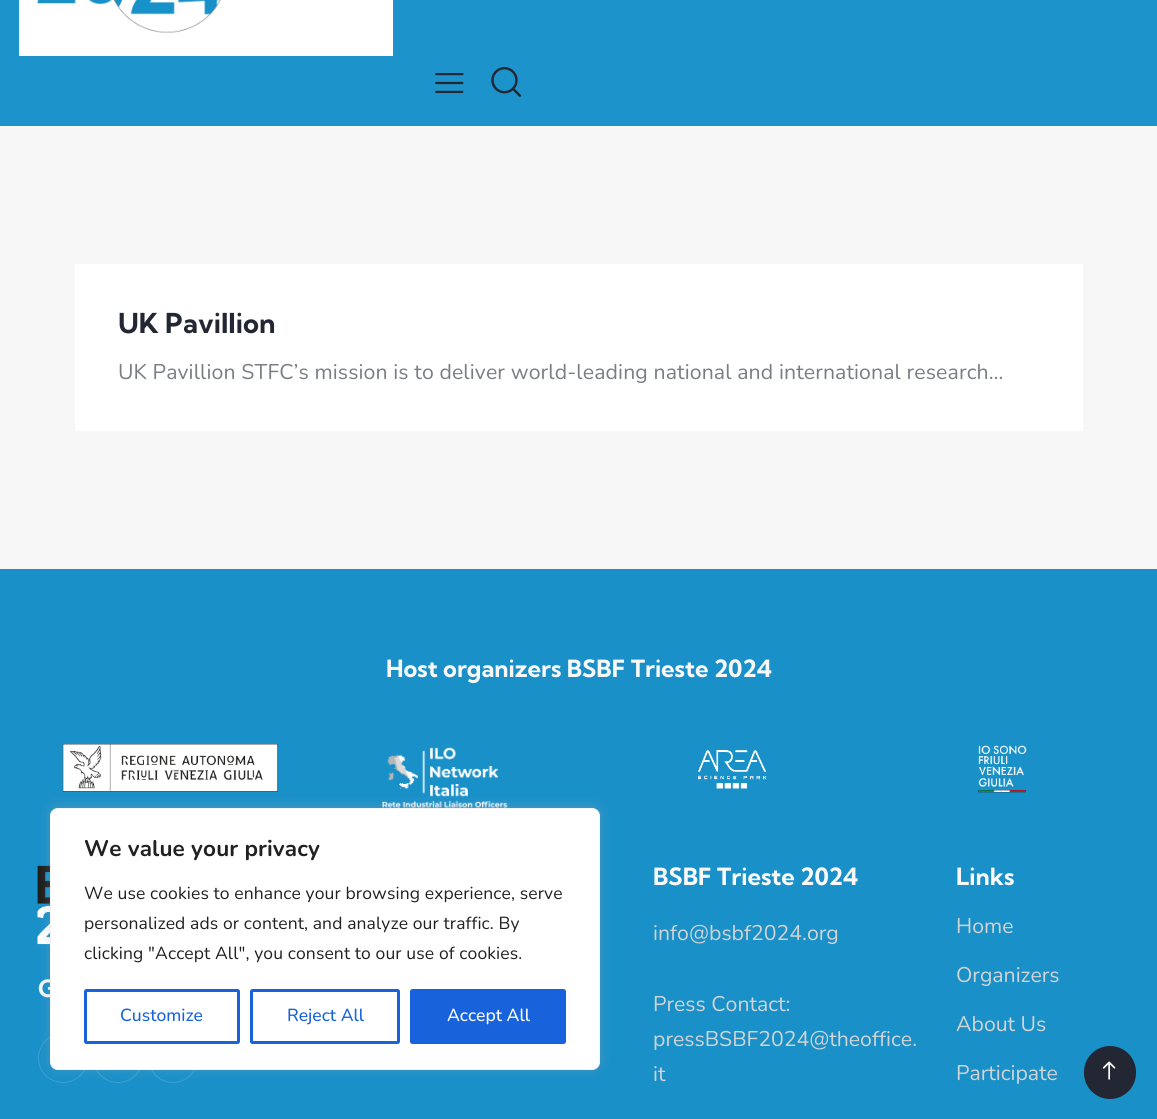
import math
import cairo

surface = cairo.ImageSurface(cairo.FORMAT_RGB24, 1157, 1119)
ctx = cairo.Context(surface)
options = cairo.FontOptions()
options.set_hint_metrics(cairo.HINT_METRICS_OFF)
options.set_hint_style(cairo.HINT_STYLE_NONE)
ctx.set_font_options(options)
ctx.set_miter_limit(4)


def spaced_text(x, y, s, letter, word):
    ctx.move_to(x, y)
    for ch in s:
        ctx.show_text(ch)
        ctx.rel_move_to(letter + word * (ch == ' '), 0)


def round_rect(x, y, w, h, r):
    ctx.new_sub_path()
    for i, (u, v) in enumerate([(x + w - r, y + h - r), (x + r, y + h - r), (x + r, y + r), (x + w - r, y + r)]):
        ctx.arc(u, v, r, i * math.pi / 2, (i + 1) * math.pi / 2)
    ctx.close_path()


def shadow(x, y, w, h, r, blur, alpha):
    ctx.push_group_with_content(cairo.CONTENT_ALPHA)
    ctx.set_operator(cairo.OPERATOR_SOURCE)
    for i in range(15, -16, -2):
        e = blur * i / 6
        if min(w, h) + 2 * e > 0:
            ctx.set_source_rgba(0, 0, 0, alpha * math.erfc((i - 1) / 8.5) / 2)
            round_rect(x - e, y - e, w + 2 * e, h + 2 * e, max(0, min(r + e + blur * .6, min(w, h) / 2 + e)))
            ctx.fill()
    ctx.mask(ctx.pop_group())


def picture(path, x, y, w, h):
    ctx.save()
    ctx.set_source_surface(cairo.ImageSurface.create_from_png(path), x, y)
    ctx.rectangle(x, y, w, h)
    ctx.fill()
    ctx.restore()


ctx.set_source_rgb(0.965, 0.965, 0.965)
ctx.paint()
ctx.set_source_rgb(0.11, 0.58, 0.796)
ctx.rectangle(0, 0, 1157, 126)
ctx.fill()
ctx.set_source_rgb(1, 1, 1)
ctx.rectangle(19, 0, 374, 56)
ctx.fill()
picture("img1.png", 37, 0, 184, 33)
picture("img2.png", 435, 73, 29, 20)
picture("img3.png", 491, 67, 31, 30)
ctx.rectangle(75, 264, 1008, 167)
ctx.fill()
ctx.select_font_face("Kumbh Sans", cairo.FONT_SLANT_NORMAL, cairo.FONT_WEIGHT_BOLD)
ctx.set_font_size(27.5)
ctx.set_source_rgb(0.133, 0.153, 0.2)
ctx.move_to(118, 333)
ctx.show_text("UK Pavillion")
ctx.select_font_face("Nunito")
ctx.set_font_size(21.25)
ctx.set_source_rgb(0.478, 0.494, 0.514)
spaced_text(118, 379, "UK Pavillion STFC’s mission is to deliver world-leading national and international research…", 0.12, 0)
ctx.set_source_rgb(0.098, 0.565, 0.784)
ctx.rectangle(0, 569, 1157, 550)
ctx.fill()
ctx.select_font_face("Kumbh Sans", cairo.FONT_SLANT_NORMAL, cairo.FONT_WEIGHT_BOLD)
ctx.set_font_size(23.75)
ctx.set_source_rgb(0.976, 0.976, 0.976)
ctx.move_to(386, 677)
ctx.show_text("Host organizers BSBF Trieste 2024")
picture("img4.png", 62, 744, 216, 48)
picture("img5.png", 382, 747, 126, 61)
picture("img6.png", 698, 750, 69, 39)
picture("img7.png", 978, 745, 49, 48)
picture("img8.png", 37, 865, 13, 80)
ctx.move_to(38, 997)
ctx.show_text("G")
ctx.new_path()
ctx.arc(63, 1058, 24.5, 0, 2 * math.pi)
ctx.set_source_rgb(0.231, 0.627, 0.812)
ctx.set_line_width(1)
ctx.stroke()
ctx.arc(118, 1058, 24.5, 0, 2 * math.pi)
ctx.stroke()
ctx.arc(173, 1058, 24.5, 0, 2 * math.pi)
ctx.stroke()
ctx.set_source_rgb(0.976, 0.976, 0.976)
ctx.move_to(653, 885)
ctx.show_text("BSBF Trieste 2024")
ctx.select_font_face("Nunito")
ctx.set_font_size(21.25)
ctx.set_source_rgb(0.824, 0.827, 0.835)
ctx.move_to(653, 940)
ctx.show_text("info@bsbf2024.org")
ctx.move_to(653, 1011)
ctx.show_text("Press Contact:")
ctx.move_to(653, 1046)
ctx.show_text("pressBSBF2024@theoffice.")
ctx.move_to(653, 1081)
ctx.show_text("it")
ctx.select_font_face("Kumbh Sans", cairo.FONT_SLANT_NORMAL, cairo.FONT_WEIGHT_BOLD)
ctx.set_font_size(23.75)
ctx.set_source_rgb(0.976, 0.976, 0.976)
ctx.move_to(956, 885)
ctx.show_text("Links")
ctx.select_font_face("Nunito")
ctx.set_font_size(21.25)
ctx.set_source_rgb(0.824, 0.827, 0.835)
ctx.move_to(956, 933)
ctx.show_text("Home")
ctx.move_to(956, 982)
ctx.show_text("Organizers")
ctx.move_to(956, 1031)
ctx.show_text("About Us")
ctx.move_to(956, 1080)
ctx.show_text("Participate")
ctx.set_source_rgb(0.675, 0.671, 0.671)
shadow(50, 806, 550, 263, 8, 6, 0.3)
ctx.set_source_rgb(1, 1, 1)
round_rect(50.5, 808.5, 549, 261, 7.5)
ctx.fill_preserve()
ctx.set_source_rgb(0.957, 0.957, 0.957)
ctx.stroke()
ctx.select_font_face("Nunito", cairo.FONT_SLANT_NORMAL, cairo.FONT_WEIGHT_BOLD)
ctx.set_font_size(22.5)
ctx.set_source_rgb(0.129, 0.129, 0.129)
spaced_text(84, 856, "We value your privacy", 0.12, 0)
ctx.select_font_face("Nunito")
ctx.set_font_size(17.5)
spaced_text(84, 899, "We use cookies to enhance your browsing experience, serve", 0.12, 0)
spaced_text(84, 929, "personalized ads or content, and analyze our traffic. By", 0.12, 0)
spaced_text(84, 959, "clicking \"Accept All\", you consent to our use of cookies.", 0.12, 0)
round_rect(85.5, 990.5, 153, 52, 1)
ctx.set_source_rgb(0.094, 0.388, 0.863)
ctx.set_line_width(3)
ctx.stroke()
ctx.select_font_face("Nunito Medium")
ctx.move_to(120, 1021)
ctx.show_text("Customize")
round_rect(251.5, 990.5, 147, 52, 1)
ctx.stroke()
ctx.move_to(287, 1021)
ctx.show_text("Reject All")
round_rect(411.5, 990.5, 153, 52, 1)
ctx.fill_preserve()
ctx.stroke()
ctx.set_source_rgb(1, 1, 1)
ctx.move_to(447, 1021)
ctx.show_text("Accept All")
ctx.set_source_rgb(0.133, 0.153, 0.2)
round_rect(1084, 1046, 52, 53, 26)
ctx.fill()
picture("img9.png", 1102, 1061, 14, 19)
surface.write_to_png("page.png")
